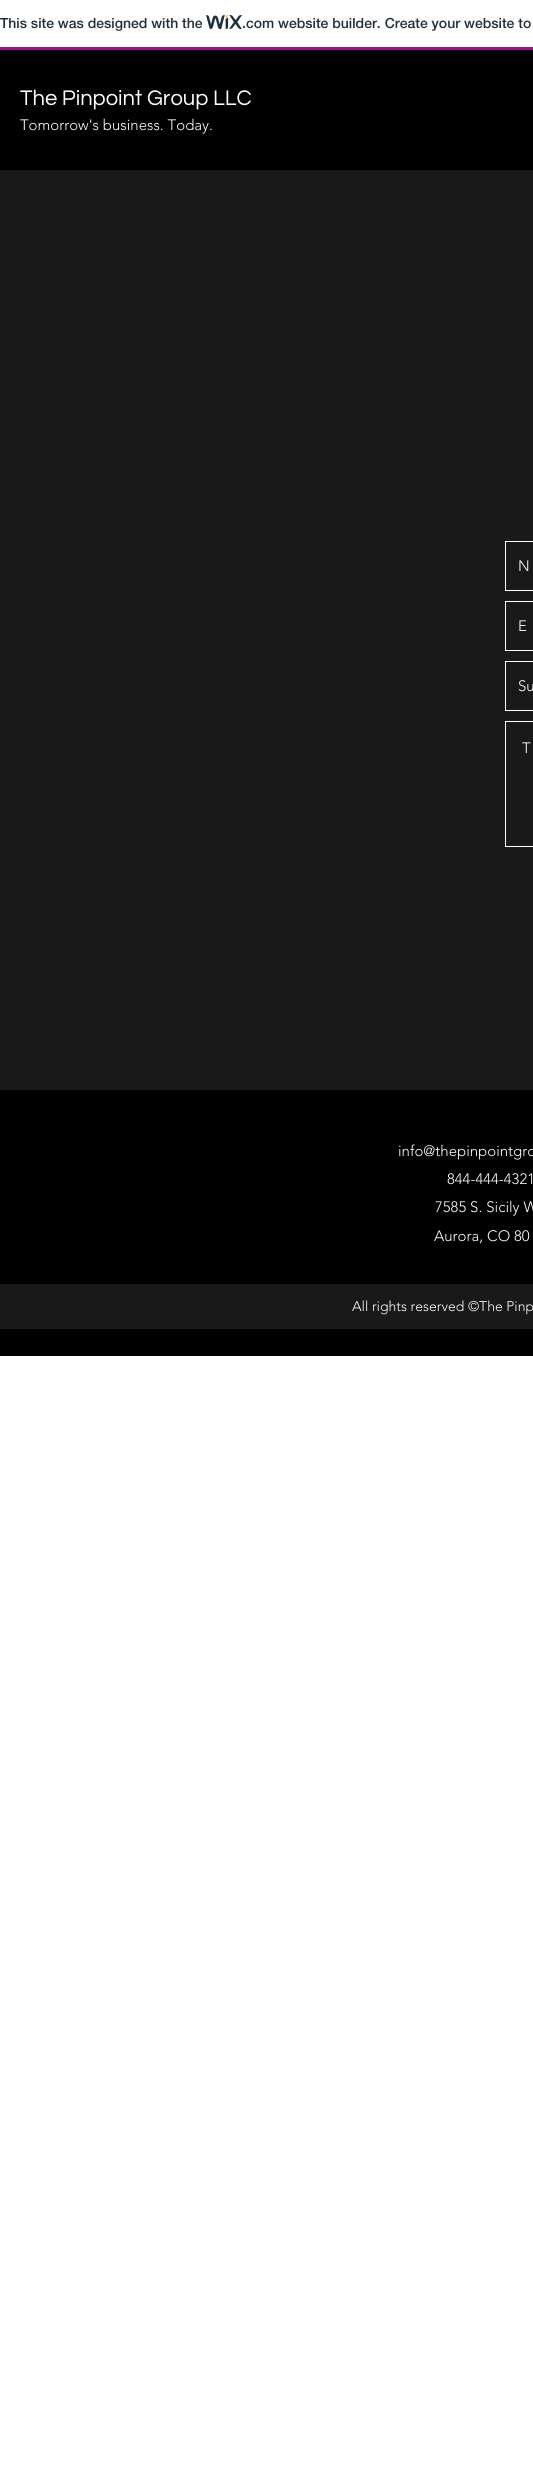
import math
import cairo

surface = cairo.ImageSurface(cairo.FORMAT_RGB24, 533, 2481)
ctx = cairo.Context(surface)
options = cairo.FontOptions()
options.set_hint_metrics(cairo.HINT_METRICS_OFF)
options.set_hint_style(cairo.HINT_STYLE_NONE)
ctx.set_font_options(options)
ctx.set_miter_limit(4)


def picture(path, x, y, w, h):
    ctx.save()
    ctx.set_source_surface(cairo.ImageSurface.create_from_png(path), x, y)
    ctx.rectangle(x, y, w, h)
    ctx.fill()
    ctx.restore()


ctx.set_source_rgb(1, 1, 1)
ctx.paint()
ctx.set_source_rgb(0.627, 0.075, 0.557)
ctx.rectangle(0, 47, 533, 3)
ctx.fill()
ctx.select_font_face("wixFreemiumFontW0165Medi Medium")
ctx.set_font_size(14)
ctx.set_source_rgb(0.125, 0.188, 0.235)
ctx.move_to(0, 28)
ctx.show_text("This site was designed with the")
picture("img1.png", 206, 15, 36, 15)
ctx.move_to(242, 28)
ctx.show_text(".com website builder. Create your website to")
ctx.set_source_rgb(0, 0, 0)
ctx.rectangle(0, 50, 533, 120)
ctx.fill()
ctx.select_font_face("Questrial")
ctx.set_font_size(22)
ctx.set_source_rgb(1, 1, 1)
ctx.move_to(20, 105)
ctx.show_text("The Pinpoint Group LLC")
ctx.select_font_face("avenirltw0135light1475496 Light")
ctx.set_font_size(15)
ctx.move_to(20, 130)
ctx.show_text("Tomorrow's business. Today.")
ctx.set_source_rgb(0.098, 0.098, 0.098)
ctx.rectangle(0, 170, 533, 920)
ctx.fill()
ctx.rectangle(505.5, 541.5, 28, 49)
ctx.set_source_rgb(1, 1, 1)
ctx.set_line_width(1)
ctx.stroke()
ctx.move_to(518, 571)
ctx.show_text("N")
ctx.rectangle(505.5, 601.5, 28, 49)
ctx.stroke()
ctx.move_to(518, 631)
ctx.show_text("E")
ctx.rectangle(505.5, 661.5, 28, 49)
ctx.stroke()
ctx.move_to(518, 691)
ctx.show_text("Su")
ctx.rectangle(505.5, 721.5, 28, 125)
ctx.stroke()
ctx.move_to(522, 753)
ctx.show_text("T")
ctx.set_source_rgb(0, 0, 0)
ctx.rectangle(0, 1090, 533, 266)
ctx.fill()
ctx.set_source_rgb(1, 1, 1)
ctx.move_to(398, 1156)
ctx.show_text("info@thepinpointgro")
ctx.move_to(447, 1184)
ctx.show_text("844-444-4321")
ctx.move_to(435, 1212)
ctx.show_text("7585 S. Sicily W")
ctx.move_to(434, 1241)
ctx.show_text("Aurora, CO 80")
ctx.set_source_rgb(0.098, 0.098, 0.098)
ctx.rectangle(0, 1284, 533, 45)
ctx.fill()
ctx.set_font_size(14)
ctx.set_source_rgb(1, 1, 1)
ctx.move_to(352, 1311)
ctx.show_text("All rights reserved ©The Pinp")
surface.write_to_png("page.png")
